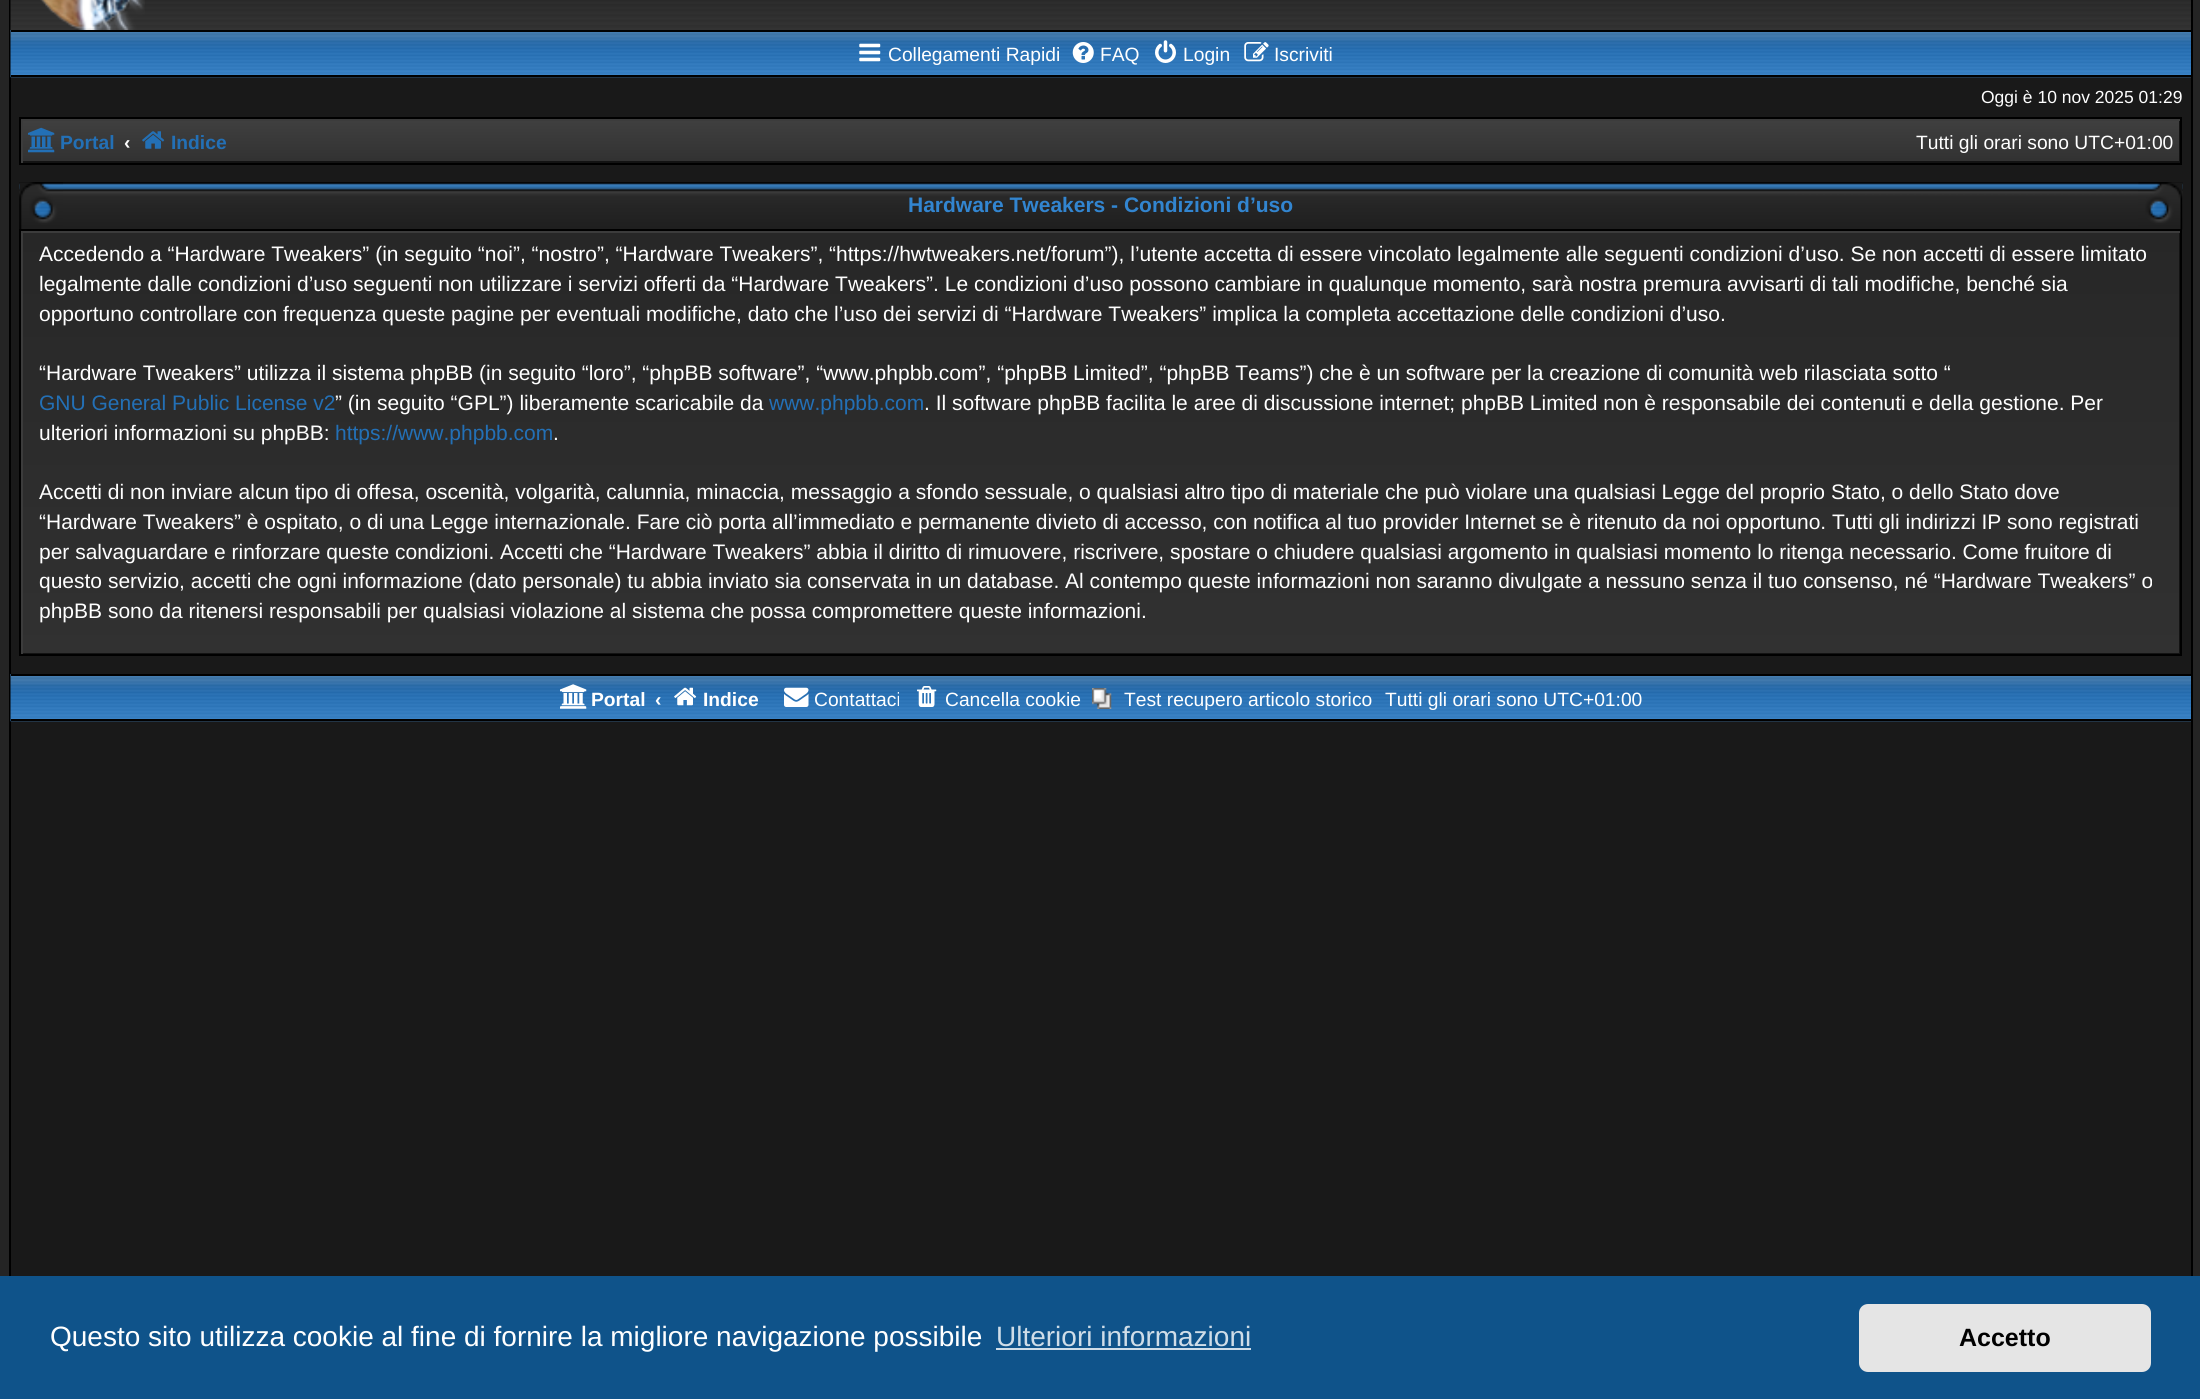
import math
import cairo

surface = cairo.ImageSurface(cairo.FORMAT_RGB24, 2200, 1399)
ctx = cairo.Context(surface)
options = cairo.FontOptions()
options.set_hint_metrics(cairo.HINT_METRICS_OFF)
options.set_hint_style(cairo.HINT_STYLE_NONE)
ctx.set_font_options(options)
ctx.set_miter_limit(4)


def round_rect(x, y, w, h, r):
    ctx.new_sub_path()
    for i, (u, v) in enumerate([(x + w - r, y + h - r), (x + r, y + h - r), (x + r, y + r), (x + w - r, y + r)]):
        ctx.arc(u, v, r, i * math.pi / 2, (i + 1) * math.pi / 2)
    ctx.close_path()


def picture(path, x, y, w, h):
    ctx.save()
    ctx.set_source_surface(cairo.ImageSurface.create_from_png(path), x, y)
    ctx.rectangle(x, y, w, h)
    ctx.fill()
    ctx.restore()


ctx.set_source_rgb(0.141, 0.141, 0.141)
ctx.paint()
ctx.set_source_rgb(0.098, 0.098, 0.098)
ctx.rectangle(11, 77, 2180, 1199)
ctx.fill()
ctx.set_source_rgb(0, 0, 0)
ctx.rectangle(2191, 0, 2, 1276)
ctx.fill()
ctx.rectangle(9, 0, 2, 1276)
ctx.fill()
picture("img1.png", 10, 0, 2181, 30)
picture("img2.png", 40, 0, 105, 30)
picture("img3.png", 10, 30, 2181, 48)
ctx.rectangle(11, 30, 2180, 2)
ctx.fill()
ctx.rectangle(11, 75, 2180, 2)
ctx.fill()
picture("img4.png", 859, 43, 22, 19)
ctx.select_font_face("Liberation Sans")
ctx.set_font_size(19.25)
ctx.set_source_rgb(1, 1, 1)
ctx.move_to(888, 61)
ctx.show_text("Collegamenti Rapidi")
picture("img5.png", 1072, 42, 22, 21)
ctx.move_to(1100, 61)
ctx.show_text("FAQ")
picture("img6.png", 1155, 40, 21, 23)
ctx.move_to(1183, 61)
ctx.show_text("Login")
picture("img7.png", 1244, 42, 25, 20)
ctx.move_to(1274, 61)
ctx.show_text("Iscriviti")
ctx.set_font_size(17.5)
ctx.move_to(1981, 103)
ctx.show_text("Oggi è 10 nov 2025 01:29")
gradient = cairo.LinearGradient(1101, 119, 1101, 163)
gradient.add_color_stop_rgba(0, 0.251, 0.251, 0.251, 1)
gradient.add_color_stop_rgba(1, 0.192, 0.192, 0.192, 1)
ctx.set_source(gradient)
ctx.rectangle(23, 121, 2156, 40)
ctx.fill()
ctx.save()
ctx.rectangle(21, 119, 2160, 44)
ctx.clip()
ctx.set_source_rgb(0.075, 0.075, 0.075)
ctx.set_fill_rule(cairo.FILL_RULE_EVEN_ODD)
ctx.new_path()
ctx.move_to(-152, -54)
ctx.line_to(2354, -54)
ctx.line_to(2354, 336)
ctx.line_to(-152, 336)
ctx.close_path()
ctx.move_to(19, 117)
ctx.line_to(2179, 117)
ctx.line_to(2179, 161)
ctx.line_to(19, 161)
ctx.close_path()
ctx.fill()
ctx.set_source_rgb(0.235, 0.235, 0.235)
ctx.new_path()
ctx.move_to(-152, -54)
ctx.line_to(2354, -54)
ctx.line_to(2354, 336)
ctx.line_to(-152, 336)
ctx.close_path()
ctx.move_to(23, 121)
ctx.line_to(2182, 121)
ctx.line_to(2182, 164)
ctx.line_to(23, 164)
ctx.close_path()
ctx.fill()
ctx.restore()
ctx.rectangle(20, 118, 2161, 46)
ctx.set_source_rgb(0, 0, 0)
ctx.stroke()
picture("img8.png", 28, 127, 27, 26)
ctx.select_font_face("Liberation Sans", cairo.FONT_SLANT_NORMAL, cairo.FONT_WEIGHT_BOLD)
ctx.set_font_size(19.25)
ctx.set_source_rgb(0.137, 0.439, 0.714)
ctx.move_to(60, 149)
ctx.show_text("Portal")
ctx.set_source_rgb(1, 1, 1)
ctx.move_to(124, 149)
ctx.show_text("‹")
picture("img9.png", 142, 131, 23, 18)
ctx.set_source_rgb(0.137, 0.439, 0.714)
ctx.move_to(171, 149)
ctx.show_text("Indice")
ctx.select_font_face("Liberation Sans")
ctx.set_source_rgb(1, 1, 1)
ctx.move_to(1916, 149)
ctx.show_text("Tutti gli orari sono UTC+01:00")
picture("img10.png", 19, 182, 2164, 48)
ctx.select_font_face("Liberation Sans", cairo.FONT_SLANT_NORMAL, cairo.FONT_WEIGHT_BOLD)
ctx.set_font_size(21)
ctx.set_source_rgb(0.196, 0.522, 0.816)
ctx.move_to(908, 212)
ctx.show_text("Hardware Tweakers - Condizioni d’uso")
gradient = cairo.LinearGradient(1101, 231, 1101, 655)
gradient.add_color_stop_rgba(0, 0.153, 0.153, 0.153, 1)
gradient.add_color_stop_rgba(1, 0.192, 0.192, 0.192, 1)
ctx.set_source(gradient)
ctx.rectangle(23, 233, 2156, 420)
ctx.fill()
ctx.save()
ctx.rectangle(21, 231, 2160, 424)
ctx.clip()
ctx.set_source_rgb(0.075, 0.075, 0.075)
ctx.set_fill_rule(cairo.FILL_RULE_EVEN_ODD)
ctx.new_path()
ctx.move_to(-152, 58)
ctx.line_to(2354, 58)
ctx.line_to(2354, 828)
ctx.line_to(-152, 828)
ctx.close_path()
ctx.move_to(19, 229)
ctx.line_to(2179, 229)
ctx.line_to(2179, 653)
ctx.line_to(19, 653)
ctx.close_path()
ctx.fill()
ctx.set_source_rgb(0.235, 0.235, 0.235)
ctx.new_path()
ctx.move_to(-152, 58)
ctx.line_to(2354, 58)
ctx.line_to(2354, 828)
ctx.line_to(-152, 828)
ctx.close_path()
ctx.move_to(23, 233)
ctx.line_to(2182, 233)
ctx.line_to(2182, 656)
ctx.line_to(23, 656)
ctx.close_path()
ctx.fill()
ctx.restore()
ctx.rectangle(20, 230, 2161, 425)
ctx.set_source_rgb(0, 0, 0)
ctx.stroke()
ctx.select_font_face("Liberation Sans")
ctx.set_source_rgb(1, 1, 1)
ctx.move_to(39, 261)
ctx.show_text("Accedendo a “Hardware Tweakers” (in seguito “noi”, “nostro”, “Hardware Tweakers”, “https://hwtweakers.net/forum”), l’utente accetta di essere vincolato legalmente alle seguenti condizioni d’uso. Se non accetti di essere limitato")
ctx.move_to(39, 291)
ctx.show_text("legalmente dalle condizioni d’uso seguenti non utilizzare i servizi offerti da “Hardware Tweakers”. Le condizioni d’uso possono cambiare in qualunque momento, sarà nostra premura avvisarti di tali modifiche, benché sia")
ctx.move_to(39, 321)
ctx.show_text("opportuno controllare con frequenza queste pagine per eventuali modifiche, dato che l’uso dei servizi di “Hardware Tweakers” implica la completa accettazione delle condizioni d’uso.")
ctx.move_to(39, 380)
ctx.show_text("“Hardware Tweakers” utilizza il sistema phpBB (in seguito “loro”, “phpBB software”, “www.phpbb.com”, “phpBB Limited”, “phpBB Teams”) che è un software per la creazione di comunità web rilasciata sotto “")
ctx.set_source_rgb(0.137, 0.439, 0.714)
ctx.move_to(39, 410)
ctx.show_text("GNU General Public License v2")
ctx.set_source_rgb(1, 1, 1)
ctx.move_to(335, 410)
ctx.show_text("” (in seguito “GPL”) liberamente scaricabile da")
ctx.set_source_rgb(0.137, 0.439, 0.714)
ctx.move_to(769, 410)
ctx.show_text("www.phpbb.com")
ctx.set_source_rgb(1, 1, 1)
ctx.move_to(924, 410)
ctx.show_text(". Il software phpBB facilita le aree di discussione internet; phpBB Limited non è responsabile dei contenuti e della gestione. Per")
ctx.move_to(39, 440)
ctx.show_text("ulteriori informazioni su phpBB:")
ctx.set_source_rgb(0.137, 0.439, 0.714)
ctx.move_to(335, 440)
ctx.show_text("https://www.phpbb.com")
ctx.set_source_rgb(1, 1, 1)
ctx.move_to(553, 440)
ctx.show_text(".")
ctx.move_to(39, 499)
ctx.show_text("Accetti di non inviare alcun tipo di offesa, oscenità, volgarità, calunnia, minaccia, messaggio a sfondo sessuale, o qualsiasi altro tipo di materiale che può violare una qualsiasi Legge del proprio Stato, o dello Stato dove")
ctx.move_to(39, 529)
ctx.show_text("“Hardware Tweakers” è ospitato, o di una Legge internazionale. Fare ciò porta all’immediato e permanente divieto di accesso, con notifica al tuo provider Internet se è ritenuto da noi opportuno. Tutti gli indirizzi IP sono registrati")
ctx.move_to(39, 559)
ctx.show_text("per salvaguardare e rinforzare queste condizioni. Accetti che “Hardware Tweakers” abbia il diritto di rimuovere, riscrivere, spostare o chiudere qualsiasi argomento in qualsiasi momento lo ritenga necessario. Come fruitore di")
ctx.move_to(39, 588)
ctx.show_text("questo servizio, accetti che ogni informazione (dato personale) tu abbia inviato sia conservata in un database. Al contempo queste informazioni non saranno divulgate a nessuno senza il tuo consenso, né “Hardware Tweakers” o")
ctx.move_to(39, 618)
ctx.show_text("phpBB sono da ritenersi responsabili per qualsiasi violazione al sistema che possa compromettere queste informazioni.")
picture("img3.png", 10, 674, 2181, 48)
ctx.set_source_rgb(0, 0, 0)
ctx.rectangle(11, 674, 2180, 2)
ctx.fill()
ctx.rectangle(11, 719, 2180, 2)
ctx.fill()
picture("img11.png", 560, 684, 27, 25)
ctx.select_font_face("Liberation Sans", cairo.FONT_SLANT_NORMAL, cairo.FONT_WEIGHT_BOLD)
ctx.set_font_size(19.25)
ctx.set_source_rgb(1, 1, 1)
ctx.move_to(591, 706)
ctx.show_text("Portal")
ctx.move_to(655, 706)
ctx.show_text("‹")
picture("img12.png", 674, 687, 23, 19)
ctx.move_to(703, 706)
ctx.show_text("Indice")
picture("img13.png", 784, 687, 25, 20)
ctx.select_font_face("Liberation Sans")
ctx.move_to(814, 706)
ctx.show_text("Contattaci")
picture("img14.png", 917, 686, 20, 21)
ctx.move_to(945, 706)
ctx.show_text("Cancella cookie")
picture("img15.png", 1092, 688, 20, 21)
ctx.move_to(1124, 706)
ctx.show_text("Test recupero articolo storico")
ctx.move_to(1385, 706)
ctx.show_text("Tutti gli orari sono UTC+01:00")
ctx.set_source_rgb(0.059, 0.325, 0.541)
ctx.rectangle(0, 1276, 2200, 123)
ctx.fill()
ctx.set_font_size(28)
ctx.set_source_rgb(1, 1, 1)
ctx.move_to(50, 1346)
ctx.show_text("Questo sito utilizza cookie al fine di fornire la migliore navigazione possibile")
ctx.set_source_rgb(0.812, 0.867, 0.91)
ctx.move_to(996, 1346)
ctx.show_text("Ulteriori informazioni")
ctx.rectangle(996, 1348, 255, 2)
ctx.fill()
ctx.set_source_rgb(0.898, 0.898, 0.898)
round_rect(1859, 1304, 292, 68, 9)
ctx.fill()
ctx.select_font_face("Liberation Sans", cairo.FONT_SLANT_NORMAL, cairo.FONT_WEIGHT_BOLD)
ctx.set_font_size(25)
ctx.set_source_rgb(0, 0, 0)
ctx.move_to(1959, 1346)
ctx.show_text("Accetto")
surface.write_to_png("page.png")
